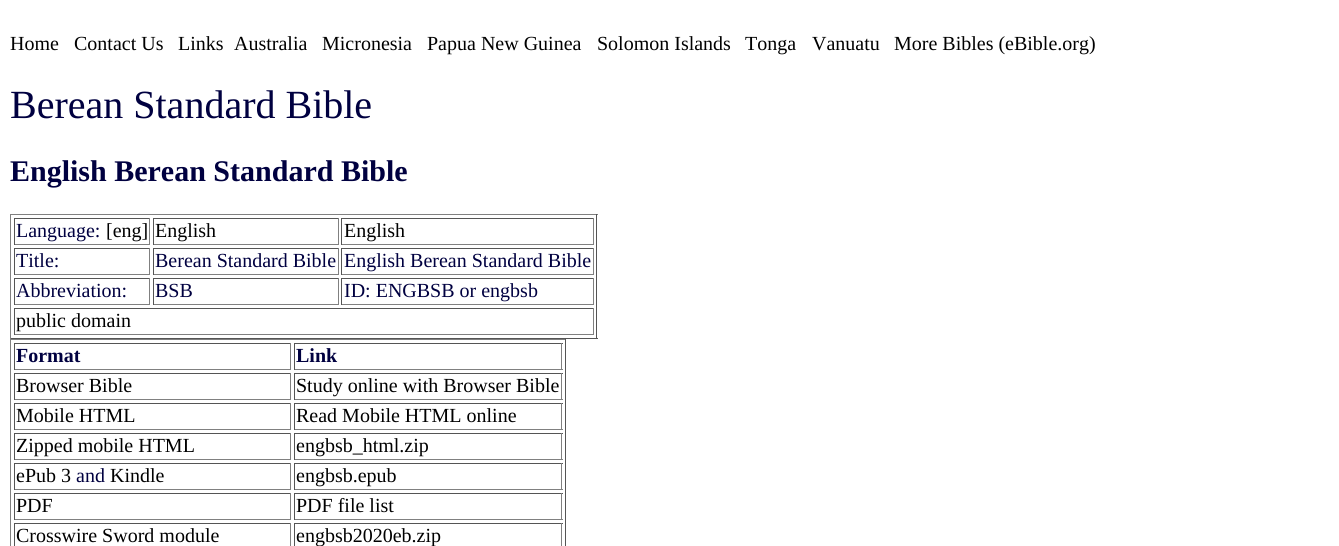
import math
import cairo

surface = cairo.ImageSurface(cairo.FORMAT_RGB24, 1339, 546)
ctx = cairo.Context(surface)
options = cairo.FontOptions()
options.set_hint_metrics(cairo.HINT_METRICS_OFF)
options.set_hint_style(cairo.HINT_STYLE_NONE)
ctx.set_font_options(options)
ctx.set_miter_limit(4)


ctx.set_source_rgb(1, 1, 1)
ctx.paint()
ctx.select_font_face("Liberation Serif")
ctx.set_font_size(20)
ctx.set_source_rgb(0, 0, 0)
ctx.move_to(10, 50)
ctx.show_text("Home")
ctx.move_to(74, 50)
ctx.show_text("Contact Us")
ctx.move_to(178, 50)
ctx.show_text("Links")
ctx.move_to(234, 50)
ctx.show_text("Australia")
ctx.move_to(322, 50)
ctx.show_text("Micronesia")
ctx.move_to(427, 50)
ctx.show_text("Papua New Guinea")
ctx.move_to(597, 50)
ctx.show_text("Solomon Islands")
ctx.move_to(745, 50)
ctx.show_text("Tonga")
ctx.move_to(812, 50)
ctx.show_text("Vanuatu")
ctx.move_to(894, 50)
ctx.show_text("More Bibles (eBible.org)")
ctx.set_font_size(40)
ctx.set_source_rgb(0, 0, 0.251)
ctx.move_to(10, 118)
ctx.show_text("Berean Standard Bible")
ctx.select_font_face("Liberation Serif", cairo.FONT_SLANT_NORMAL, cairo.FONT_WEIGHT_BOLD)
ctx.set_font_size(30)
ctx.move_to(10, 181)
ctx.show_text("English Berean Standard Bible")
ctx.set_source_rgb(0.502, 0.502, 0.502)
ctx.rectangle(10, 214, 588, 1)
ctx.fill()
ctx.set_source_rgb(0.333, 0.333, 0.333)
ctx.rectangle(596, 214, 1, 125)
ctx.fill()
ctx.rectangle(10, 338, 588, 1)
ctx.fill()
ctx.set_source_rgb(0.502, 0.502, 0.502)
ctx.rectangle(10, 214, 1, 125)
ctx.fill()
ctx.set_source_rgb(0.333, 0.333, 0.333)
ctx.rectangle(14, 218, 136, 1)
ctx.fill()
ctx.set_source_rgb(0.502, 0.502, 0.502)
ctx.rectangle(149, 218, 1, 27)
ctx.fill()
ctx.rectangle(14, 244, 136, 1)
ctx.fill()
ctx.set_source_rgb(0.333, 0.333, 0.333)
ctx.rectangle(14, 218, 1, 27)
ctx.fill()
ctx.select_font_face("Liberation Serif")
ctx.set_font_size(20)
ctx.set_source_rgb(0, 0, 0.251)
ctx.move_to(16, 237)
ctx.show_text("Language:")
ctx.set_source_rgb(0, 0, 0)
ctx.move_to(106, 237)
ctx.show_text("[eng]")
ctx.set_source_rgb(0.333, 0.333, 0.333)
ctx.rectangle(153, 218, 186, 1)
ctx.fill()
ctx.set_source_rgb(0.502, 0.502, 0.502)
ctx.rectangle(338, 218, 1, 27)
ctx.fill()
ctx.rectangle(153, 244, 186, 1)
ctx.fill()
ctx.set_source_rgb(0.333, 0.333, 0.333)
ctx.rectangle(153, 218, 1, 27)
ctx.fill()
ctx.set_source_rgb(0, 0, 0)
ctx.move_to(155, 237)
ctx.show_text("English")
ctx.set_source_rgb(0.333, 0.333, 0.333)
ctx.rectangle(341, 218, 253, 1)
ctx.fill()
ctx.set_source_rgb(0.502, 0.502, 0.502)
ctx.rectangle(593, 218, 1, 27)
ctx.fill()
ctx.rectangle(341, 244, 253, 1)
ctx.fill()
ctx.set_source_rgb(0.333, 0.333, 0.333)
ctx.rectangle(341, 218, 1, 27)
ctx.fill()
ctx.set_source_rgb(0, 0, 0)
ctx.move_to(344, 237)
ctx.show_text("English")
ctx.set_source_rgb(0.333, 0.333, 0.333)
ctx.rectangle(14, 248, 136, 1)
ctx.fill()
ctx.set_source_rgb(0.502, 0.502, 0.502)
ctx.rectangle(149, 248, 1, 27)
ctx.fill()
ctx.rectangle(14, 274, 136, 1)
ctx.fill()
ctx.set_source_rgb(0.333, 0.333, 0.333)
ctx.rectangle(14, 248, 1, 27)
ctx.fill()
ctx.set_source_rgb(0, 0, 0.251)
ctx.move_to(16, 267)
ctx.show_text("Title:")
ctx.set_source_rgb(0.333, 0.333, 0.333)
ctx.rectangle(153, 248, 186, 1)
ctx.fill()
ctx.set_source_rgb(0.502, 0.502, 0.502)
ctx.rectangle(338, 248, 1, 27)
ctx.fill()
ctx.rectangle(153, 274, 186, 1)
ctx.fill()
ctx.set_source_rgb(0.333, 0.333, 0.333)
ctx.rectangle(153, 248, 1, 27)
ctx.fill()
ctx.set_source_rgb(0, 0, 0.251)
ctx.move_to(155, 267)
ctx.show_text("Berean Standard Bible")
ctx.set_source_rgb(0.333, 0.333, 0.333)
ctx.rectangle(341, 248, 253, 1)
ctx.fill()
ctx.set_source_rgb(0.502, 0.502, 0.502)
ctx.rectangle(593, 248, 1, 27)
ctx.fill()
ctx.rectangle(341, 274, 253, 1)
ctx.fill()
ctx.set_source_rgb(0.333, 0.333, 0.333)
ctx.rectangle(341, 248, 1, 27)
ctx.fill()
ctx.set_source_rgb(0, 0, 0.251)
ctx.move_to(344, 267)
ctx.show_text("English Berean Standard Bible")
ctx.set_source_rgb(0.333, 0.333, 0.333)
ctx.rectangle(14, 278, 136, 1)
ctx.fill()
ctx.set_source_rgb(0.502, 0.502, 0.502)
ctx.rectangle(149, 278, 1, 27)
ctx.fill()
ctx.rectangle(14, 304, 136, 1)
ctx.fill()
ctx.set_source_rgb(0.333, 0.333, 0.333)
ctx.rectangle(14, 278, 1, 27)
ctx.fill()
ctx.set_source_rgb(0, 0, 0.251)
ctx.move_to(16, 297)
ctx.show_text("Abbreviation:")
ctx.set_source_rgb(0.333, 0.333, 0.333)
ctx.rectangle(153, 278, 186, 1)
ctx.fill()
ctx.set_source_rgb(0.502, 0.502, 0.502)
ctx.rectangle(338, 278, 1, 27)
ctx.fill()
ctx.rectangle(153, 304, 186, 1)
ctx.fill()
ctx.set_source_rgb(0.333, 0.333, 0.333)
ctx.rectangle(153, 278, 1, 27)
ctx.fill()
ctx.set_source_rgb(0, 0, 0.251)
ctx.move_to(155, 297)
ctx.show_text("BSB")
ctx.set_source_rgb(0.333, 0.333, 0.333)
ctx.rectangle(341, 278, 253, 1)
ctx.fill()
ctx.set_source_rgb(0.502, 0.502, 0.502)
ctx.rectangle(593, 278, 1, 27)
ctx.fill()
ctx.rectangle(341, 304, 253, 1)
ctx.fill()
ctx.set_source_rgb(0.333, 0.333, 0.333)
ctx.rectangle(341, 278, 1, 27)
ctx.fill()
ctx.set_source_rgb(0, 0, 0.251)
ctx.move_to(344, 297)
ctx.show_text("ID: ENGBSB or engbsb")
ctx.set_source_rgb(0.333, 0.333, 0.333)
ctx.rectangle(14, 308, 580, 1)
ctx.fill()
ctx.set_source_rgb(0.502, 0.502, 0.502)
ctx.rectangle(593, 308, 1, 27)
ctx.fill()
ctx.rectangle(14, 334, 580, 1)
ctx.fill()
ctx.set_source_rgb(0.333, 0.333, 0.333)
ctx.rectangle(14, 308, 1, 27)
ctx.fill()
ctx.set_source_rgb(0, 0, 0)
ctx.move_to(16, 327)
ctx.show_text("public domain")
ctx.set_source_rgb(0.502, 0.502, 0.502)
ctx.rectangle(10, 339, 556, 1)
ctx.fill()
ctx.set_source_rgb(0.333, 0.333, 0.333)
ctx.rectangle(565, 339, 1, 207)
ctx.fill()
ctx.set_source_rgb(0.502, 0.502, 0.502)
ctx.rectangle(10, 339, 1, 207)
ctx.fill()
ctx.set_source_rgb(0.333, 0.333, 0.333)
ctx.rectangle(14, 343, 277, 1)
ctx.fill()
ctx.set_source_rgb(0.502, 0.502, 0.502)
ctx.rectangle(290, 343, 1, 27)
ctx.fill()
ctx.rectangle(14, 369, 277, 1)
ctx.fill()
ctx.set_source_rgb(0.333, 0.333, 0.333)
ctx.rectangle(14, 343, 1, 27)
ctx.fill()
ctx.select_font_face("Liberation Serif", cairo.FONT_SLANT_NORMAL, cairo.FONT_WEIGHT_BOLD)
ctx.set_source_rgb(0, 0, 0.251)
ctx.move_to(16, 362)
ctx.show_text("Format")
ctx.set_source_rgb(0.333, 0.333, 0.333)
ctx.rectangle(294, 343, 269, 1)
ctx.fill()
ctx.set_source_rgb(0.502, 0.502, 0.502)
ctx.rectangle(561, 343, 1, 27)
ctx.fill()
ctx.rectangle(294, 369, 269, 1)
ctx.fill()
ctx.set_source_rgb(0.333, 0.333, 0.333)
ctx.rectangle(294, 343, 1, 27)
ctx.fill()
ctx.set_source_rgb(0, 0, 0.251)
ctx.move_to(296, 362)
ctx.show_text("Link")
ctx.set_source_rgb(0.333, 0.333, 0.333)
ctx.rectangle(14, 373, 277, 1)
ctx.fill()
ctx.set_source_rgb(0.502, 0.502, 0.502)
ctx.rectangle(290, 373, 1, 27)
ctx.fill()
ctx.rectangle(14, 399, 277, 1)
ctx.fill()
ctx.set_source_rgb(0.333, 0.333, 0.333)
ctx.rectangle(14, 373, 1, 27)
ctx.fill()
ctx.select_font_face("Liberation Serif")
ctx.set_source_rgb(0, 0, 0)
ctx.move_to(16, 392)
ctx.show_text("Browser Bible")
ctx.set_source_rgb(0.333, 0.333, 0.333)
ctx.rectangle(294, 373, 269, 1)
ctx.fill()
ctx.set_source_rgb(0.502, 0.502, 0.502)
ctx.rectangle(561, 373, 1, 27)
ctx.fill()
ctx.rectangle(294, 399, 269, 1)
ctx.fill()
ctx.set_source_rgb(0.333, 0.333, 0.333)
ctx.rectangle(294, 373, 1, 27)
ctx.fill()
ctx.set_source_rgb(0, 0, 0)
ctx.move_to(296, 392)
ctx.show_text("Study online with Browser Bible")
ctx.set_source_rgb(0.333, 0.333, 0.333)
ctx.rectangle(14, 403, 277, 1)
ctx.fill()
ctx.set_source_rgb(0.502, 0.502, 0.502)
ctx.rectangle(290, 403, 1, 27)
ctx.fill()
ctx.rectangle(14, 429, 277, 1)
ctx.fill()
ctx.set_source_rgb(0.333, 0.333, 0.333)
ctx.rectangle(14, 403, 1, 27)
ctx.fill()
ctx.set_source_rgb(0, 0, 0)
ctx.move_to(16, 422)
ctx.show_text("Mobile HTML")
ctx.set_source_rgb(0.333, 0.333, 0.333)
ctx.rectangle(294, 403, 269, 1)
ctx.fill()
ctx.set_source_rgb(0.502, 0.502, 0.502)
ctx.rectangle(561, 403, 1, 27)
ctx.fill()
ctx.rectangle(294, 429, 269, 1)
ctx.fill()
ctx.set_source_rgb(0.333, 0.333, 0.333)
ctx.rectangle(294, 403, 1, 27)
ctx.fill()
ctx.set_source_rgb(0, 0, 0)
ctx.move_to(296, 422)
ctx.show_text("Read Mobile HTML online")
ctx.set_source_rgb(0.333, 0.333, 0.333)
ctx.rectangle(14, 433, 277, 1)
ctx.fill()
ctx.set_source_rgb(0.502, 0.502, 0.502)
ctx.rectangle(290, 433, 1, 27)
ctx.fill()
ctx.rectangle(14, 459, 277, 1)
ctx.fill()
ctx.set_source_rgb(0.333, 0.333, 0.333)
ctx.rectangle(14, 433, 1, 27)
ctx.fill()
ctx.set_source_rgb(0, 0, 0)
ctx.move_to(16, 452)
ctx.show_text("Zipped mobile HTML")
ctx.set_source_rgb(0.333, 0.333, 0.333)
ctx.rectangle(294, 433, 269, 1)
ctx.fill()
ctx.set_source_rgb(0.502, 0.502, 0.502)
ctx.rectangle(561, 433, 1, 27)
ctx.fill()
ctx.rectangle(294, 459, 269, 1)
ctx.fill()
ctx.set_source_rgb(0.333, 0.333, 0.333)
ctx.rectangle(294, 433, 1, 27)
ctx.fill()
ctx.set_source_rgb(0, 0, 0)
ctx.move_to(296, 452)
ctx.show_text("engbsb_html.zip")
ctx.set_source_rgb(0.333, 0.333, 0.333)
ctx.rectangle(14, 463, 277, 1)
ctx.fill()
ctx.set_source_rgb(0.502, 0.502, 0.502)
ctx.rectangle(290, 463, 1, 27)
ctx.fill()
ctx.rectangle(14, 489, 277, 1)
ctx.fill()
ctx.set_source_rgb(0.333, 0.333, 0.333)
ctx.rectangle(14, 463, 1, 27)
ctx.fill()
ctx.set_source_rgb(0, 0, 0)
ctx.move_to(16, 482)
ctx.show_text("ePub 3")
ctx.set_source_rgb(0, 0, 0.251)
ctx.move_to(76, 482)
ctx.show_text("and")
ctx.set_source_rgb(0, 0, 0)
ctx.move_to(110, 482)
ctx.show_text("Kindle")
ctx.set_source_rgb(0.333, 0.333, 0.333)
ctx.rectangle(294, 463, 269, 1)
ctx.fill()
ctx.set_source_rgb(0.502, 0.502, 0.502)
ctx.rectangle(561, 463, 1, 27)
ctx.fill()
ctx.rectangle(294, 489, 269, 1)
ctx.fill()
ctx.set_source_rgb(0.333, 0.333, 0.333)
ctx.rectangle(294, 463, 1, 27)
ctx.fill()
ctx.set_source_rgb(0, 0, 0)
ctx.move_to(296, 482)
ctx.show_text("engbsb.epub")
ctx.set_source_rgb(0.333, 0.333, 0.333)
ctx.rectangle(14, 493, 277, 1)
ctx.fill()
ctx.set_source_rgb(0.502, 0.502, 0.502)
ctx.rectangle(290, 493, 1, 27)
ctx.fill()
ctx.rectangle(14, 519, 277, 1)
ctx.fill()
ctx.set_source_rgb(0.333, 0.333, 0.333)
ctx.rectangle(14, 493, 1, 27)
ctx.fill()
ctx.set_source_rgb(0, 0, 0)
ctx.move_to(16, 512)
ctx.show_text("PDF")
ctx.set_source_rgb(0.333, 0.333, 0.333)
ctx.rectangle(294, 493, 269, 1)
ctx.fill()
ctx.set_source_rgb(0.502, 0.502, 0.502)
ctx.rectangle(561, 493, 1, 27)
ctx.fill()
ctx.rectangle(294, 519, 269, 1)
ctx.fill()
ctx.set_source_rgb(0.333, 0.333, 0.333)
ctx.rectangle(294, 493, 1, 27)
ctx.fill()
ctx.set_source_rgb(0, 0, 0)
ctx.move_to(296, 512)
ctx.show_text("PDF file list")
ctx.set_source_rgb(0.333, 0.333, 0.333)
ctx.rectangle(14, 523, 277, 1)
ctx.fill()
ctx.set_source_rgb(0.502, 0.502, 0.502)
ctx.rectangle(290, 523, 1, 23)
ctx.fill()
ctx.set_source_rgb(0.333, 0.333, 0.333)
ctx.rectangle(14, 523, 1, 23)
ctx.fill()
ctx.set_source_rgb(0, 0, 0)
ctx.move_to(16, 542)
ctx.show_text("Crosswire Sword module")
ctx.set_source_rgb(0.333, 0.333, 0.333)
ctx.rectangle(294, 523, 269, 1)
ctx.fill()
ctx.set_source_rgb(0.502, 0.502, 0.502)
ctx.rectangle(561, 523, 1, 23)
ctx.fill()
ctx.set_source_rgb(0.333, 0.333, 0.333)
ctx.rectangle(294, 523, 1, 23)
ctx.fill()
ctx.set_source_rgb(0, 0, 0)
ctx.move_to(296, 542)
ctx.show_text("engbsb2020eb.zip")
surface.write_to_png("page.png")
